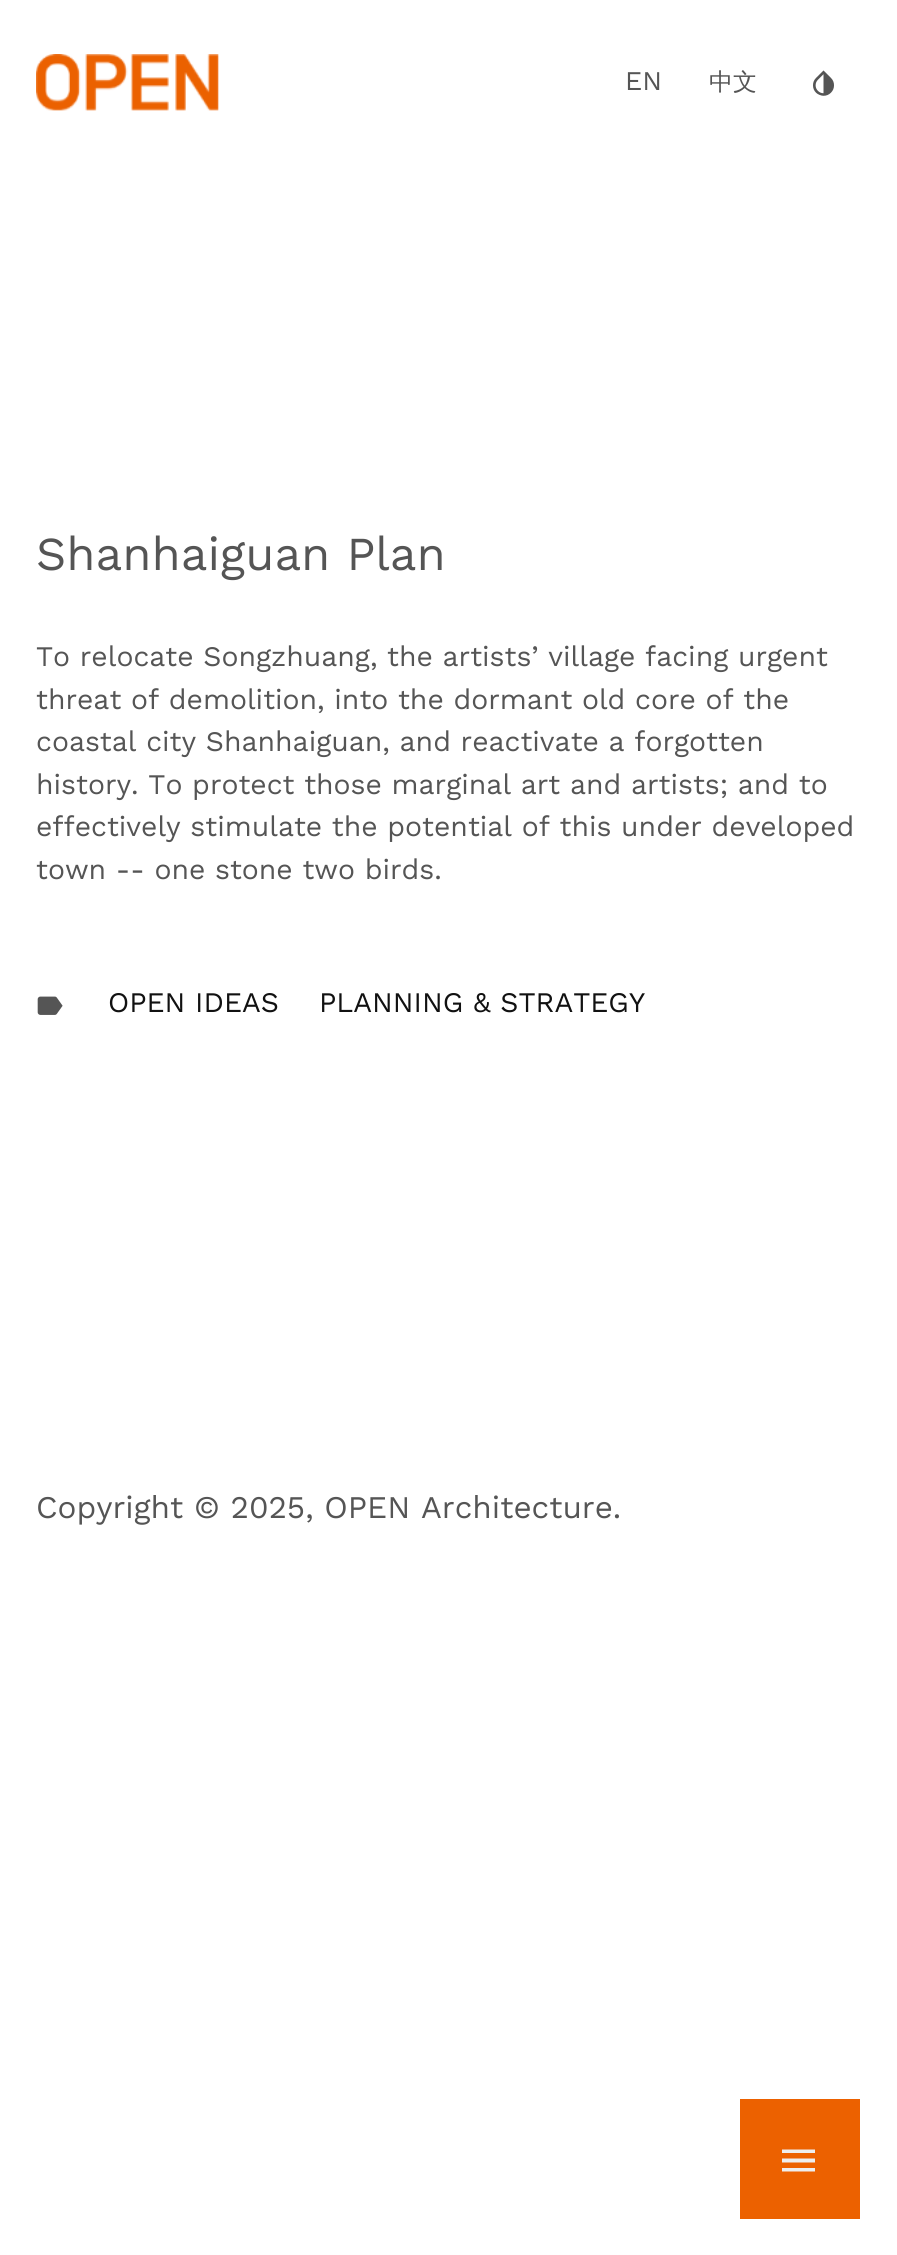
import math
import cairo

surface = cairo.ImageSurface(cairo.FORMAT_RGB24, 897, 2255)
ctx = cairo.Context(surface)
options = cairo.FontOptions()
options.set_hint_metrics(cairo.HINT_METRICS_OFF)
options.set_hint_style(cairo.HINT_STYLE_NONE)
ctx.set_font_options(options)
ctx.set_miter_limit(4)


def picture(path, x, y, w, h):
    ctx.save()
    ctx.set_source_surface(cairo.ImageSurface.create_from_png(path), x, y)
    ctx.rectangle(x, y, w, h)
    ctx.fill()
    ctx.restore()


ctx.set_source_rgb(1, 1, 1)
ctx.paint()
picture("img1.png", 36, 54, 183, 57)
ctx.select_font_face("Work Sans")
ctx.set_font_size(27)
ctx.set_source_rgb(0.333, 0.333, 0.333)
ctx.move_to(625, 90)
ctx.show_text("EN")
ctx.select_font_face("WenQuanYi Zen Hei Medium")
ctx.set_font_size(24)
ctx.move_to(709, 90)
ctx.show_text("中文")
picture("img2.png", 813, 70, 21, 26)
ctx.select_font_face("Work Sans")
ctx.set_font_size(47.25)
ctx.move_to(36, 570)
ctx.show_text("Shanhaiguan Plan")
ctx.set_font_size(28.35)
ctx.move_to(36, 666)
ctx.show_text("To relocate Songzhuang, the artists’ village facing urgent")
ctx.move_to(36, 709)
ctx.show_text("threat of demolition, into the dormant old core of the")
ctx.move_to(36, 751)
ctx.show_text("coastal city Shanhaiguan, and reactivate a forgotten")
ctx.move_to(36, 794)
ctx.show_text("history. To protect those marginal art and artists; and to")
ctx.move_to(36, 836)
ctx.show_text("effectively stimulate the potential of this under developed")
ctx.move_to(36, 879)
ctx.show_text("town -- one stone two birds.")
picture("img3.png", 37, 996, 26, 19)
ctx.set_source_rgb(0.067, 0.067, 0.067)
ctx.move_to(108, 1012)
ctx.show_text("OPEN IDEAS")
ctx.move_to(319, 1012)
ctx.show_text("PLANNING & STRATEGY")
ctx.set_font_size(31.5)
ctx.set_source_rgb(0.333, 0.333, 0.333)
ctx.move_to(36, 1518)
ctx.show_text("Copyright © 2025, OPEN Architecture.")
ctx.set_source_rgb(0.922, 0.38, 0)
ctx.rectangle(740, 2099, 120, 120)
ctx.fill()
ctx.set_source_rgb(0.933, 0.933, 0.933)
ctx.new_path()
ctx.move_to(782, 2149.5)
ctx.line_to(815, 2149.5)
ctx.line_to(815, 2153)
ctx.line_to(782, 2153)
ctx.close_path()
ctx.move_to(782, 2162.5)
ctx.line_to(782, 2158.5)
ctx.line_to(815, 2158.5)
ctx.line_to(815, 2162.5)
ctx.close_path()
ctx.move_to(782, 2171.5)
ctx.line_to(782, 2168)
ctx.line_to(815, 2168)
ctx.line_to(815, 2171.5)
ctx.close_path()
ctx.fill()
surface.write_to_png("page.png")
